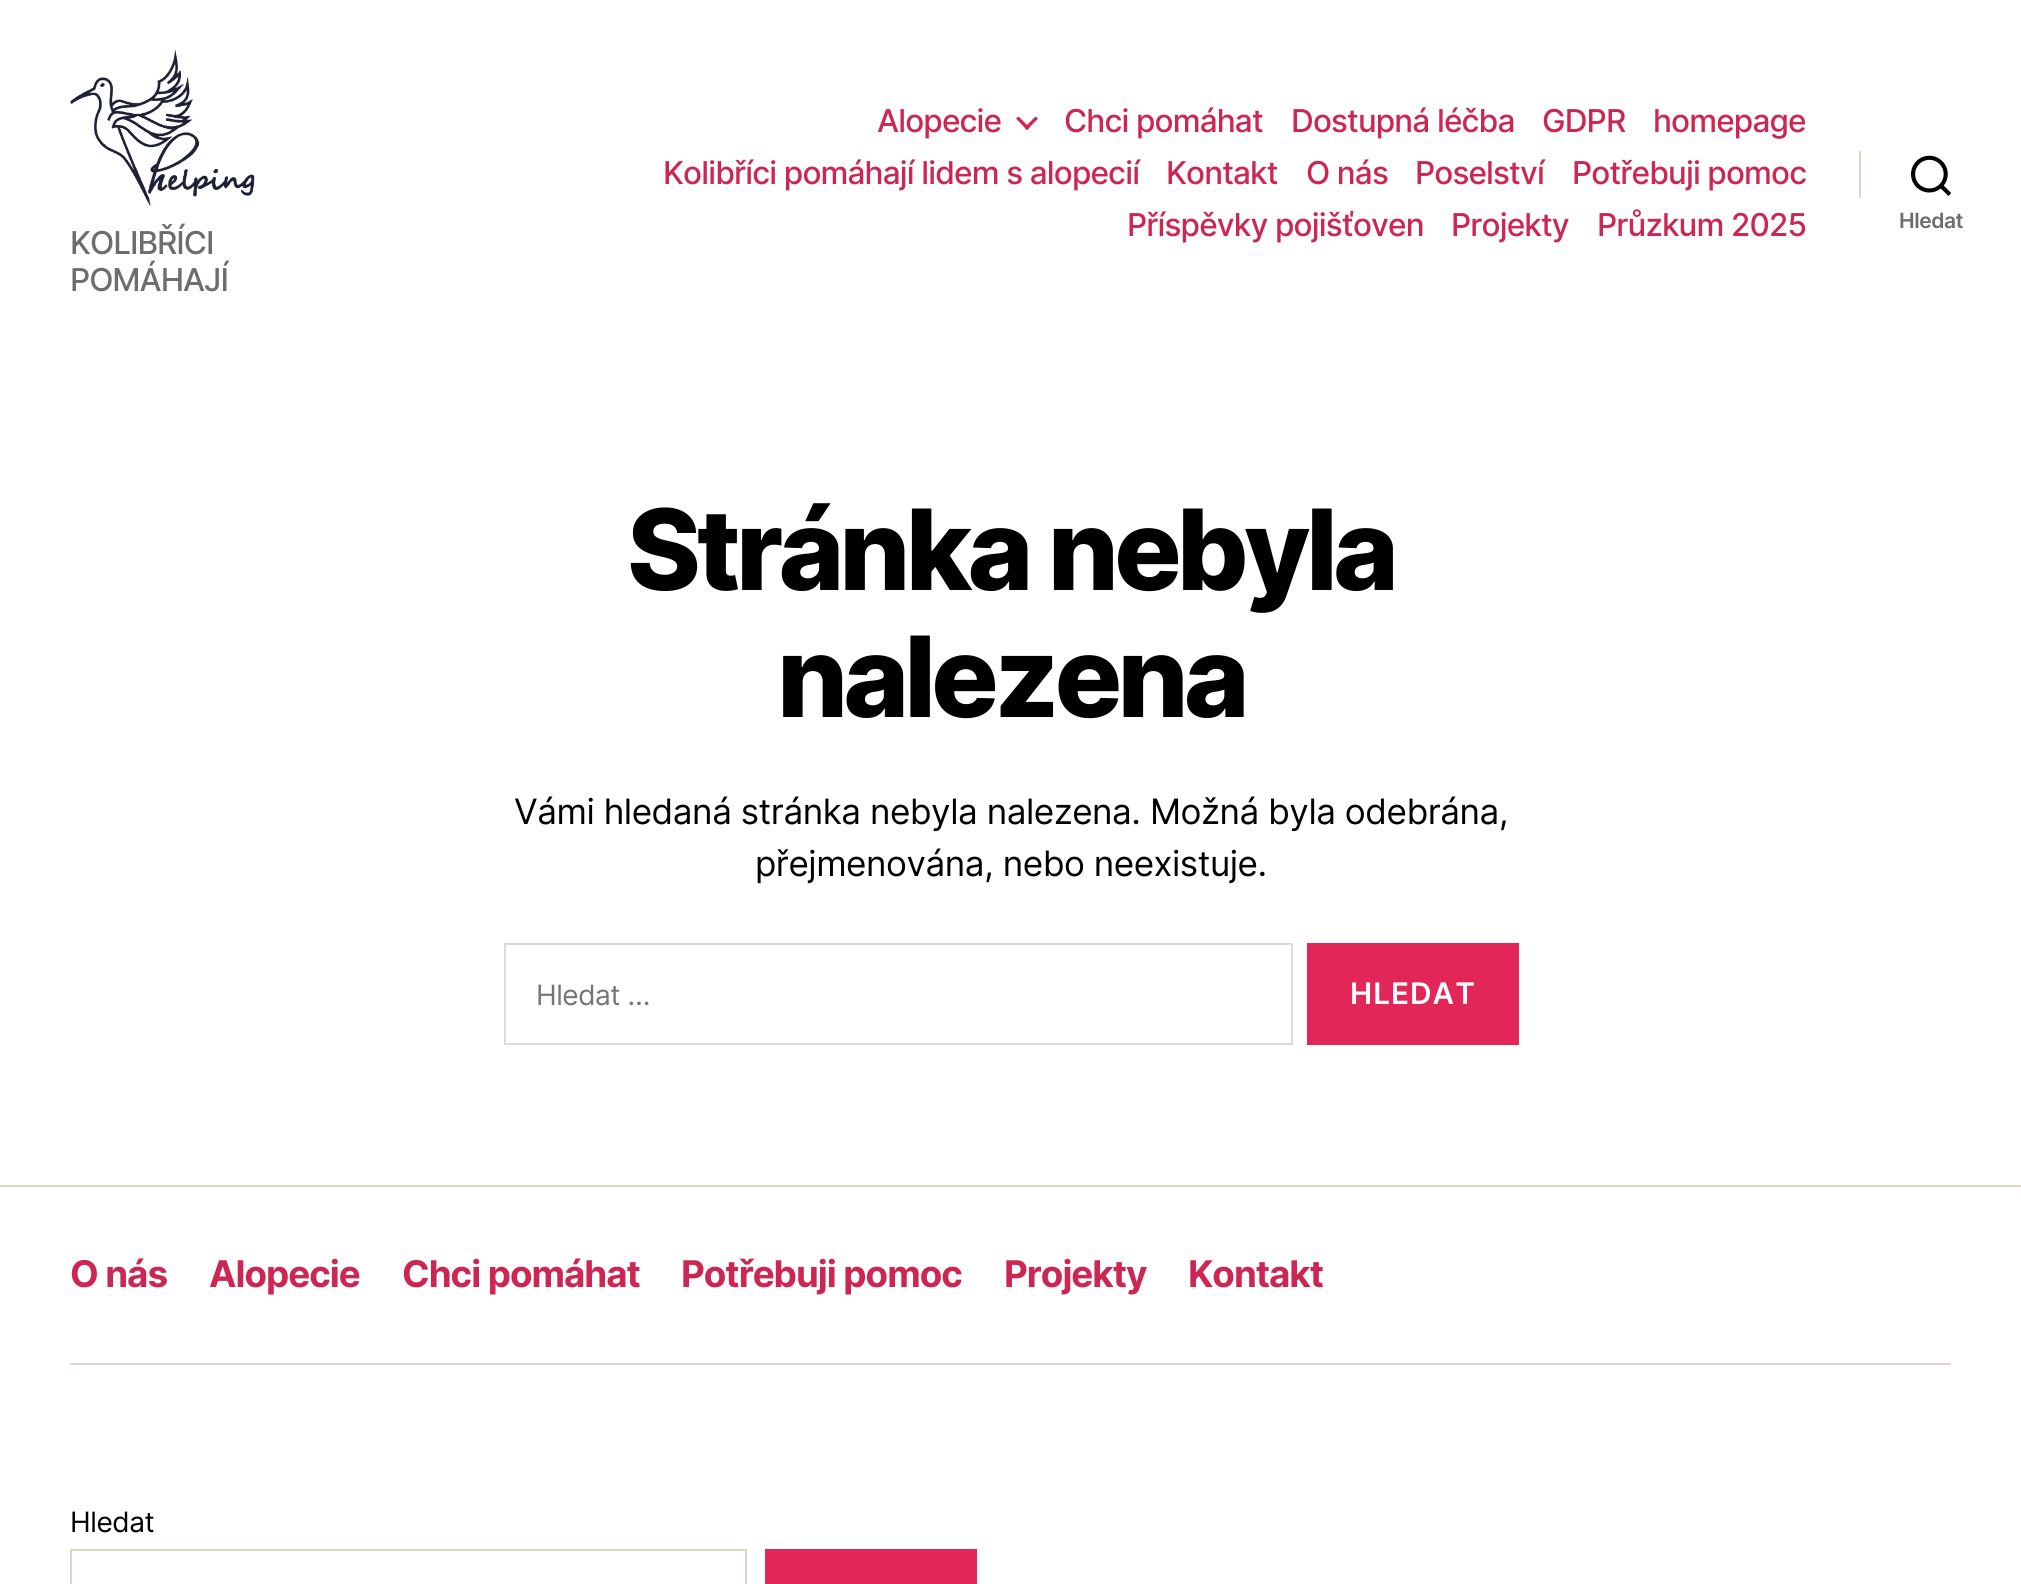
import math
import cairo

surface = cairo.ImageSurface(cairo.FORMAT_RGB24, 2021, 1584)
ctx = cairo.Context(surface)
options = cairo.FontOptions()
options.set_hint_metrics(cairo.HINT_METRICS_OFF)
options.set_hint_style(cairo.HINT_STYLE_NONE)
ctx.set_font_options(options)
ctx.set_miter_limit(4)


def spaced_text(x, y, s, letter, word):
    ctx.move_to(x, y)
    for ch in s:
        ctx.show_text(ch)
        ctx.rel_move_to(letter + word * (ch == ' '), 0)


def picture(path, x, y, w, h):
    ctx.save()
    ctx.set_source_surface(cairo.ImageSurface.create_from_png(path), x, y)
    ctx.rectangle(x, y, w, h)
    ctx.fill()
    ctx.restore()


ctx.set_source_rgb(1, 1, 1)
ctx.paint()
ctx.select_font_face("Inter Medium")
ctx.set_font_size(31.5)
ctx.set_source_rgb(0.804, 0.149, 0.325)
spaced_text(877, 132, "Alopecie", -0.85, 0)
ctx.new_path()
ctx.move_to(1016, 118.5)
ctx.line_to(1018.5, 116.5)
ctx.line_to(1029.5, 127.5)
ctx.line_to(1027, 130)
ctx.close_path()
ctx.fill()
ctx.new_path()
ctx.move_to(1024.5, 127.5)
ctx.line_to(1035.5, 116.5)
ctx.line_to(1038, 118.5)
ctx.line_to(1027, 130)
ctx.close_path()
ctx.fill()
spaced_text(1064, 132, "Chci pomáhat", -0.85, 0)
spaced_text(1291, 132, "Dostupná léčba", -0.85, 0)
spaced_text(1542, 132, "GDPR", -0.85, 0)
spaced_text(1653, 132, "homepage", -0.85, 0)
spaced_text(663, 184, "Kolibříci pomáhají lidem s alopecií", -0.85, 0)
spaced_text(1166, 184, "Kontakt", -0.85, 0)
spaced_text(1306, 184, "O nás", -0.85, 0)
spaced_text(1415, 184, "Poselství", -0.85, 0)
spaced_text(1572, 184, "Potřebuji pomoc", -0.85, 0)
spaced_text(1127, 236, "Příspěvky pojišťoven", -0.85, 0)
spaced_text(1451, 236, "Projekty", -0.85, 0)
spaced_text(1597, 236, "Průzkum 2025", -0.85, 0)
ctx.set_source_rgb(0.863, 0.843, 0.792)
ctx.rectangle(1859, 151, 2, 47)
ctx.fill()
picture("img1.png", 1911, 155, 40, 41)
ctx.select_font_face("Inter SemiBold")
ctx.set_font_size(21)
ctx.set_source_rgb(0.427, 0.427, 0.427)
spaced_text(1899, 228, "Hledat", -0.47, 0)
picture("img2.png", 70, 50, 185, 156)
ctx.select_font_face("Inter Medium")
ctx.set_font_size(31.5)
spaced_text(70, 254, "KOLIBŘÍCI", -1, 0)
spaced_text(70, 291, "POMÁHAJÍ", -1, 0)
ctx.select_font_face("Inter ExtraBold")
ctx.set_font_size(112)
ctx.set_source_rgb(0, 0, 0)
spaced_text(627, 590, "Stránka nebyla", -4.7, 0)
spaced_text(777, 717, "nalezena", -4.7, 0)
ctx.select_font_face("Inter")
ctx.set_font_size(35)
spaced_text(514, 824, "Vámi hledaná stránka nebyla nalezena. Možná byla odebrána,", -0.47, 0)
spaced_text(755, 876, "přejmenována, nebo neexistuje.", -0.47, 0)
ctx.rectangle(505, 944, 787, 100)
ctx.set_source_rgb(0.859, 0.859, 0.859)
ctx.stroke()
ctx.set_font_size(28)
ctx.set_source_rgb(0.459, 0.459, 0.459)
spaced_text(536, 1005, "Hledat …", -0.5, 0)
ctx.set_source_rgb(0.886, 0.149, 0.345)
ctx.rectangle(1307, 943, 212, 102)
ctx.fill()
ctx.select_font_face("Inter SemiBold")
ctx.set_font_size(29.75)
ctx.set_source_rgb(1, 1, 1)
spaced_text(1350, 1004, "HLEDAT", 1, 0)
ctx.set_source_rgb(0.863, 0.843, 0.792)
ctx.rectangle(0, 1185, 2021, 2)
ctx.fill()
ctx.rectangle(70, 1363, 1881, 2)
ctx.fill()
ctx.select_font_face("Inter", cairo.FONT_SLANT_NORMAL, cairo.FONT_WEIGHT_BOLD)
ctx.set_font_size(36.75)
ctx.set_source_rgb(0.804, 0.149, 0.325)
spaced_text(70, 1287, "O nás", -1, 0)
spaced_text(209, 1287, "Alopecie", -1, 0)
spaced_text(402, 1287, "Chci pomáhat", -1, 0)
spaced_text(681, 1287, "Potřebuji pomoc", -1, 0)
spaced_text(1004, 1287, "Projekty", -1, 0)
spaced_text(1188, 1287, "Kontakt", -1, 0)
ctx.select_font_face("Inter")
ctx.set_font_size(28)
ctx.set_source_rgb(0, 0, 0)
spaced_text(70, 1532, "Hledat", -0.47, 0)
ctx.rectangle(71, 1550, 675, 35)
ctx.set_source_rgb(0.863, 0.843, 0.792)
ctx.stroke()
ctx.set_source_rgb(0.886, 0.149, 0.345)
ctx.rectangle(765, 1549, 212, 35)
ctx.fill()
surface.write_to_png("page.png")
